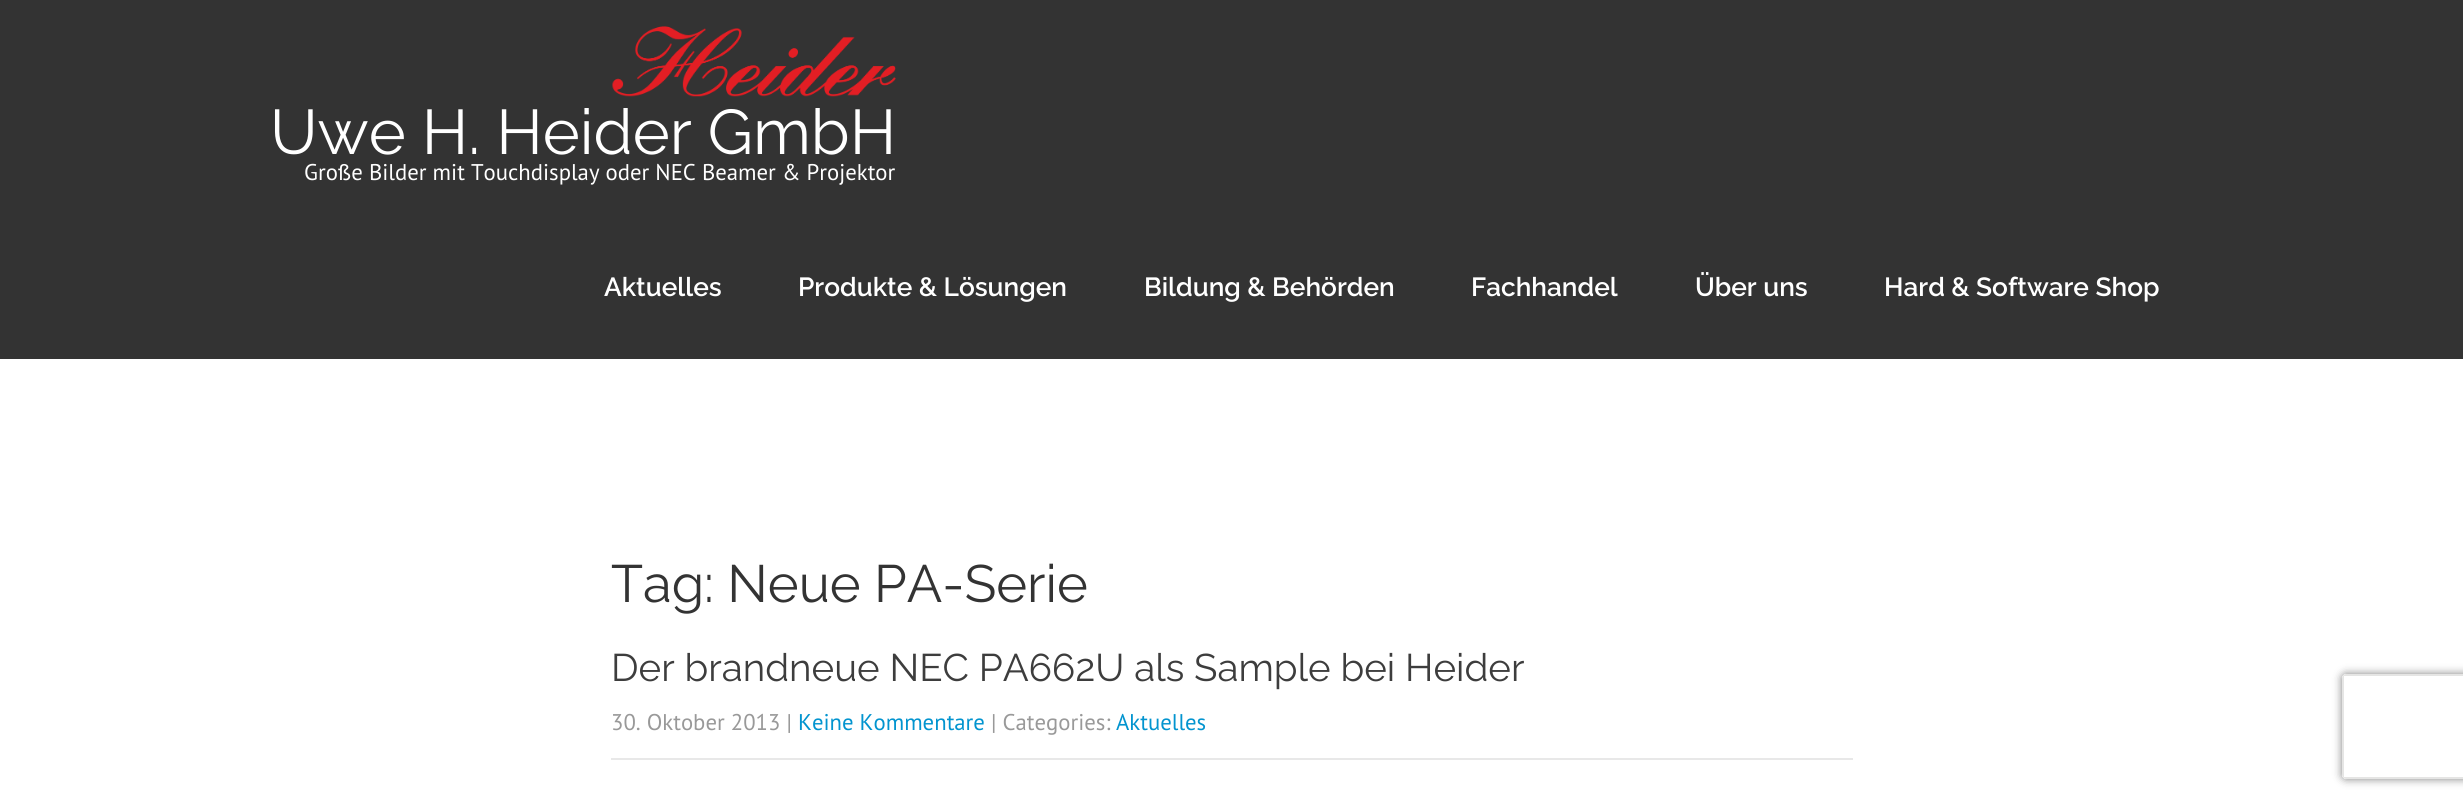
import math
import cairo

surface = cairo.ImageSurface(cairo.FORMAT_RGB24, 2463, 802)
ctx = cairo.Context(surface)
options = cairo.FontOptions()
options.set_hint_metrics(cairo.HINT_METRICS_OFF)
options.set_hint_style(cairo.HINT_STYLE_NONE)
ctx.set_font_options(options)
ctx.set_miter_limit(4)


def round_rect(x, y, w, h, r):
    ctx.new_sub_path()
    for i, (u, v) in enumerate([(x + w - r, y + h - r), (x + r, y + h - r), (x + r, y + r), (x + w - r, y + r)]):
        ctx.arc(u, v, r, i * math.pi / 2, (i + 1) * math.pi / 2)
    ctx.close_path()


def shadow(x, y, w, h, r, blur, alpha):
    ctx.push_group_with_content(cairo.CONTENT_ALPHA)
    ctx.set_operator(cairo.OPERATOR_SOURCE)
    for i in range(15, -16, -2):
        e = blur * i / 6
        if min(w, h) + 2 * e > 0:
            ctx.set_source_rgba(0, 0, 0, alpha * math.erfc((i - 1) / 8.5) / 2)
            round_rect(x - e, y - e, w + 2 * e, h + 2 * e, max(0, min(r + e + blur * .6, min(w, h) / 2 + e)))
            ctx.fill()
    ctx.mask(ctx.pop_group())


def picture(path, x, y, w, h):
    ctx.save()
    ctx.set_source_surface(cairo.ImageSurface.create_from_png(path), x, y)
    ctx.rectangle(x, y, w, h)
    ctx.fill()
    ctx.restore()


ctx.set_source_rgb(1, 1, 1)
ctx.paint()
ctx.set_source_rgb(0.2, 0.2, 0.2)
ctx.rectangle(0, 0, 2463, 359)
ctx.fill()
picture("img1.png", 612, 26, 284, 71)
ctx.select_font_face("Raleway Thin")
ctx.set_font_size(63)
ctx.set_source_rgb(1, 1, 1)
ctx.move_to(270, 154)
ctx.show_text("Uwe H. Heider GmbH")
ctx.select_font_face("PT Sans")
ctx.set_font_size(22.75)
ctx.move_to(304, 180)
ctx.show_text("Große Bilder mit Touchdisplay oder NEC Beamer & Projektor")
ctx.select_font_face("Raleway SemiBold")
ctx.set_font_size(26.25)
ctx.move_to(604, 296)
ctx.show_text("Aktuelles")
ctx.move_to(798, 296)
ctx.show_text("Produkte & Lösungen")
ctx.move_to(1144, 296)
ctx.show_text("Bildung & Behörden")
ctx.move_to(1471, 296)
ctx.show_text("Fachhandel")
ctx.move_to(1695, 296)
ctx.show_text("Über uns")
ctx.move_to(1884, 296)
ctx.show_text("Hard & Software Shop")
ctx.select_font_face("Raleway Thin")
ctx.set_font_size(52.5)
ctx.set_source_rgb(0.2, 0.2, 0.2)
ctx.move_to(611, 602)
ctx.show_text("Tag: Neue PA-Serie")
ctx.set_font_size(38.5)
ctx.set_source_rgb(0.239, 0.239, 0.239)
ctx.move_to(611, 681)
ctx.show_text("Der brandneue NEC PA662U als Sample bei Heider")
ctx.set_source_rgb(0.91, 0.91, 0.91)
ctx.rectangle(611, 758, 1242, 2)
ctx.fill()
ctx.select_font_face("PT Sans")
ctx.set_font_size(22.75)
ctx.set_source_rgb(0.6, 0.6, 0.6)
ctx.move_to(611, 730)
ctx.show_text("30. Oktober 2013 |")
ctx.set_source_rgb(0.008, 0.58, 0.812)
ctx.move_to(798, 730)
ctx.show_text("Keine Kommentare")
ctx.set_source_rgb(0.6, 0.6, 0.6)
ctx.move_to(991, 730)
ctx.show_text("| Categories:")
ctx.set_source_rgb(0.008, 0.58, 0.812)
ctx.move_to(1116, 730)
ctx.show_text("Aktuelles")
ctx.save()
ctx.set_fill_rule(cairo.FILL_RULE_EVEN_ODD)
ctx.new_path()
ctx.move_to(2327, 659)
ctx.line_to(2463, 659)
ctx.line_to(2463, 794)
ctx.line_to(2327, 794)
ctx.close_path()
ctx.move_to(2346, 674)
ctx.line_to(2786, 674)
ctx.curve_to(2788, 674, 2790, 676, 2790, 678)
ctx.line_to(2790, 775)
ctx.curve_to(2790, 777, 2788, 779, 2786, 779)
ctx.line_to(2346, 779)
ctx.curve_to(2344, 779, 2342, 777, 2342, 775)
ctx.line_to(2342, 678)
ctx.curve_to(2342, 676, 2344, 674, 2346, 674)
ctx.close_path()
ctx.clip()
ctx.set_source_rgb(0.502, 0.502, 0.502)
shadow(2342, 674, 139, 105, 4, 4.5, 1)
ctx.restore()
ctx.set_source_rgb(0.898, 0.898, 0.894)
ctx.set_fill_rule(cairo.FILL_RULE_EVEN_ODD)
ctx.new_path()
ctx.move_to(2346, 674)
ctx.curve_to(2344, 674, 2342, 676, 2342, 678)
ctx.line_to(2342, 775)
ctx.curve_to(2342, 777, 2344, 779, 2346, 779)
ctx.line_to(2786, 779)
ctx.curve_to(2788, 779, 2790, 777, 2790, 775)
ctx.line_to(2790, 678)
ctx.curve_to(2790, 676, 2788, 674, 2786, 674)
ctx.close_path()
ctx.move_to(2344, 676)
ctx.line_to(2344, 777)
ctx.line_to(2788, 777)
ctx.line_to(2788, 676)
ctx.close_path()
ctx.fill()
surface.write_to_png("page.png")
